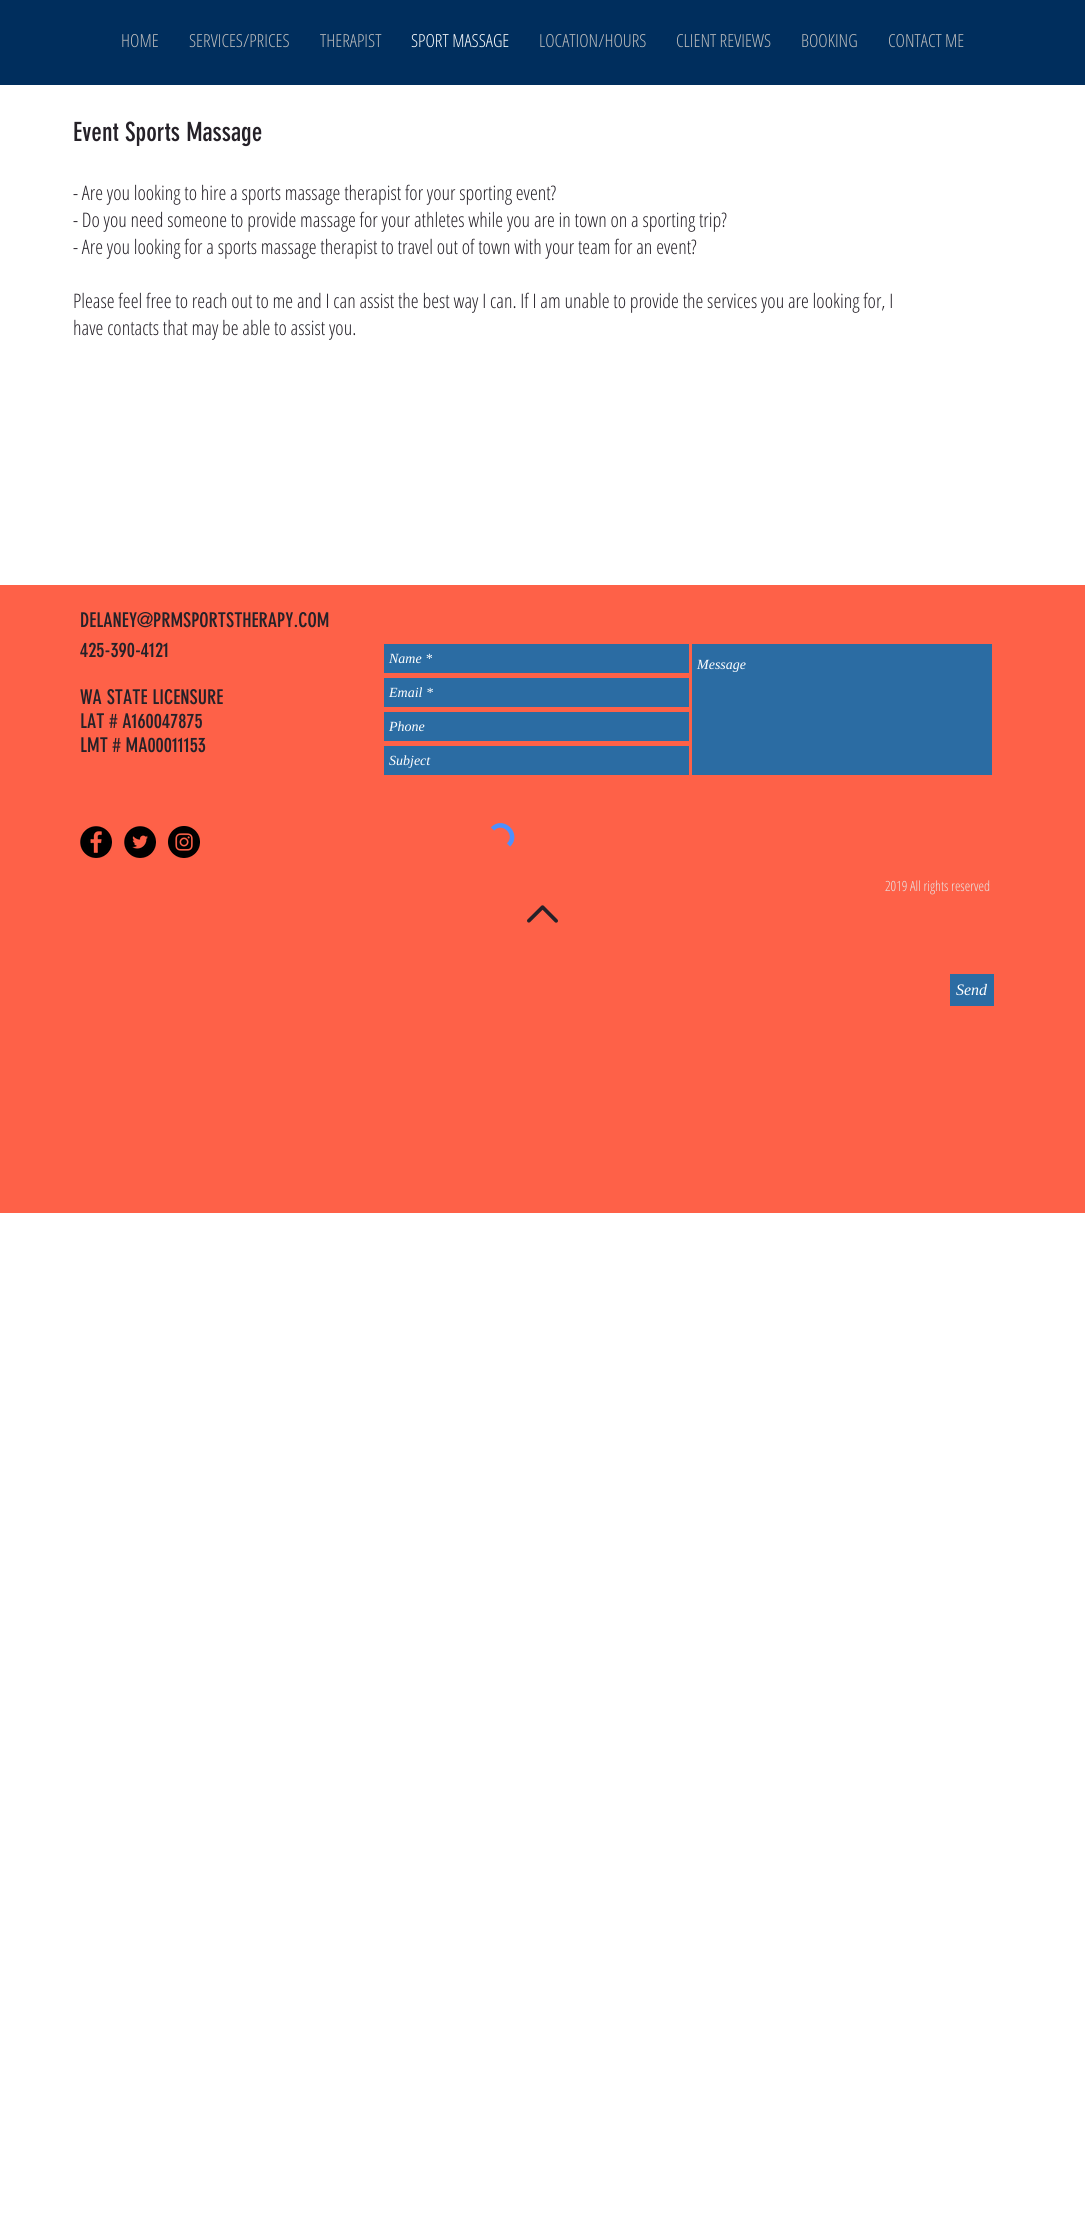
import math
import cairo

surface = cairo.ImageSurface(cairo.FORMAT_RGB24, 1085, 2234)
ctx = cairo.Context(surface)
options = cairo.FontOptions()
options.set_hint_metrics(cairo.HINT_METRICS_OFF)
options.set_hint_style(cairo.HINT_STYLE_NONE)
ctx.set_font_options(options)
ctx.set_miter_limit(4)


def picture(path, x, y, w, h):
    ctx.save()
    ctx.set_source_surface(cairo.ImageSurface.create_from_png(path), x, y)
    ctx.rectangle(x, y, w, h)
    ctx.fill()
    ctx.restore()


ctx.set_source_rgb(1, 1, 1)
ctx.paint()
ctx.set_source_rgb(0, 0.18, 0.365)
ctx.rectangle(0, 0, 1085, 85)
ctx.fill()
ctx.select_font_face("Open Sans Condensed Light")
ctx.set_font_size(18)
ctx.set_source_rgb(0.741, 0.741, 0.741)
ctx.move_to(121, 47)
ctx.show_text("HOME")
ctx.move_to(189, 47)
ctx.show_text("SERVICES/PRICES")
ctx.move_to(320, 47)
ctx.show_text("THERAPIST")
ctx.set_source_rgb(1, 1, 1)
ctx.move_to(411, 47)
ctx.show_text("SPORT MASSAGE")
ctx.set_source_rgb(0.741, 0.741, 0.741)
ctx.move_to(539, 47)
ctx.show_text("LOCATION/HOURS")
ctx.move_to(676, 47)
ctx.show_text("CLIENT REVIEWS")
ctx.move_to(801, 47)
ctx.show_text("BOOKING")
ctx.move_to(888, 47)
ctx.show_text("CONTACT ME")
ctx.select_font_face("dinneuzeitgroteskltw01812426")
ctx.set_font_size(26)
ctx.set_source_rgb(0.145, 0.129, 0.157)
ctx.move_to(73, 141)
ctx.show_text("Event Sports Massage")
ctx.select_font_face("Open Sans Condensed Light")
ctx.set_font_size(20)
ctx.move_to(73, 200)
ctx.show_text("- Are you looking to hire a sports massage therapist for your sporting event?")
ctx.move_to(73, 227)
ctx.show_text("- Do you need someone to provide massage for your athletes while you are in town on a sporting trip?")
ctx.move_to(73, 254)
ctx.show_text("- Are you looking for a sports massage therapist to travel out of town with your team for an event?")
ctx.move_to(73, 308)
ctx.show_text("Please feel free to reach out to me and I can assist the best way I can. If I am unable to provide the services you are looking for, I")
ctx.move_to(73, 335)
ctx.show_text("have contacts that may be able to assist you.")
ctx.set_source_rgb(0.996, 0.38, 0.282)
ctx.rectangle(0, 585, 1085, 628)
ctx.fill()
ctx.select_font_face("dinneuzeitgroteskltw01812426")
ctx.set_source_rgb(0.145, 0.129, 0.157)
ctx.move_to(80, 627)
ctx.show_text("DELANEY@PRMSPORTSTHERAPY.COM")
ctx.move_to(80, 657)
ctx.show_text("425-390-4121")
ctx.move_to(80, 704)
ctx.show_text("WA STATE LICENSURE")
ctx.move_to(80, 728)
ctx.show_text("LAT # A160047875")
ctx.move_to(80, 752)
ctx.show_text("LMT # MA00011153")
ctx.set_source_rgb(0.169, 0.424, 0.639)
ctx.rectangle(384, 644, 305, 29)
ctx.fill()
ctx.select_font_face("Liberation Serif", cairo.FONT_SLANT_ITALIC)
ctx.set_font_size(14)
ctx.set_source_rgb(1, 1, 1)
ctx.move_to(389, 663)
ctx.show_text("Name *")
ctx.set_source_rgb(0.169, 0.424, 0.639)
ctx.rectangle(692, 644, 300, 131)
ctx.fill()
ctx.set_source_rgb(1, 1, 1)
ctx.move_to(697, 669)
ctx.show_text("Message")
ctx.set_source_rgb(0.169, 0.424, 0.639)
ctx.rectangle(384, 678, 305, 29)
ctx.fill()
ctx.set_source_rgb(1, 1, 1)
ctx.move_to(389, 697)
ctx.show_text("Email *")
ctx.set_source_rgb(0.169, 0.424, 0.639)
ctx.rectangle(384, 712, 305, 29)
ctx.fill()
ctx.set_source_rgb(1, 1, 1)
ctx.move_to(389, 731)
ctx.show_text("Phone")
ctx.set_source_rgb(0.169, 0.424, 0.639)
ctx.rectangle(384, 746, 305, 29)
ctx.fill()
ctx.set_source_rgb(1, 1, 1)
ctx.move_to(389, 765)
ctx.show_text("Subject")
ctx.new_path()
ctx.move_to(492.5, 829)
ctx.curve_to(503, 818, 519.5, 834.5, 508.5, 845)
ctx.set_source_rgb(0.302, 0.565, 0.996)
ctx.set_line_width(4.6)
ctx.stroke()
ctx.set_source_rgb(0.169, 0.424, 0.639)
ctx.rectangle(950, 974, 44, 32)
ctx.fill()
ctx.set_font_size(16)
ctx.set_source_rgb(1, 1, 1)
ctx.move_to(956, 995)
ctx.show_text("Send")
picture("img1.png", 80, 826, 32, 32)
picture("img2.png", 124, 826, 32, 32)
picture("img3.png", 168, 826, 32, 32)
ctx.select_font_face("Open Sans Condensed Light")
ctx.set_font_size(14)
ctx.set_source_rgb(0.91, 0.91, 0.91)
ctx.move_to(885, 891)
ctx.show_text("2019 All rights reserved")
picture("img4.png", 527, 905, 31, 18)
surface.write_to_png("page.png")
